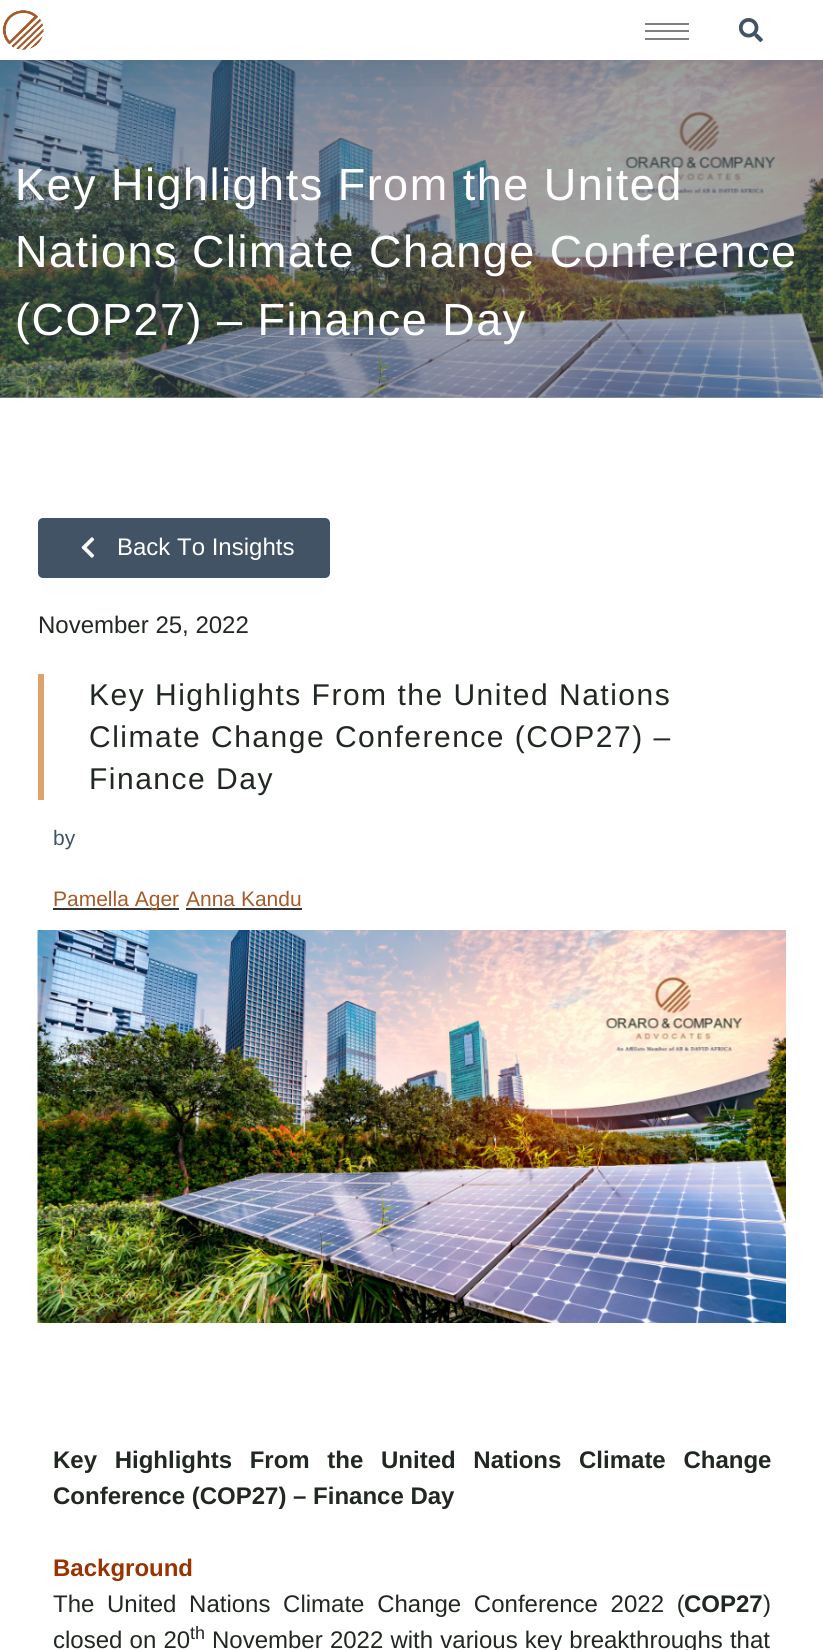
import math
import cairo

surface = cairo.ImageSurface(cairo.FORMAT_RGB24, 823, 1650)
ctx = cairo.Context(surface)
options = cairo.FontOptions()
options.set_hint_metrics(cairo.HINT_METRICS_OFF)
options.set_hint_style(cairo.HINT_STYLE_NONE)
ctx.set_font_options(options)
ctx.set_miter_limit(4)


def spaced_text(x, y, s, letter, word):
    ctx.move_to(x, y)
    for ch in s:
        ctx.show_text(ch)
        ctx.rel_move_to(letter + word * (ch == ' '), 0)


def round_rect(x, y, w, h, r):
    ctx.new_sub_path()
    for i, (u, v) in enumerate([(x + w - r, y + h - r), (x + r, y + h - r), (x + r, y + r), (x + w - r, y + r)]):
        ctx.arc(u, v, r, i * math.pi / 2, (i + 1) * math.pi / 2)
    ctx.close_path()


def shadow(x, y, w, h, r, blur, alpha):
    ctx.push_group_with_content(cairo.CONTENT_ALPHA)
    ctx.set_operator(cairo.OPERATOR_SOURCE)
    for i in range(15, -16, -2):
        e = blur * i / 6
        if min(w, h) + 2 * e > 0:
            ctx.set_source_rgba(0, 0, 0, alpha * math.erfc((i - 1) / 8.5) / 2)
            round_rect(x - e, y - e, w + 2 * e, h + 2 * e, max(0, min(r + e + blur * .6, min(w, h) / 2 + e)))
            ctx.fill()
    ctx.mask(ctx.pop_group())


def picture(path, x, y, w, h):
    ctx.save()
    ctx.set_source_surface(cairo.ImageSurface.create_from_png(path), x, y)
    ctx.rectangle(x, y, w, h)
    ctx.fill()
    ctx.restore()


ctx.set_source_rgb(1, 1, 1)
ctx.paint()
ctx.set_source_rgb(0.627, 0.663, 0.698)
ctx.rectangle(0, 397, 823, 1)
ctx.fill()
picture("img3.png", 0, 60, 823, 338)
ctx.save()
ctx.rectangle(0, 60, 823, 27)
ctx.clip()
ctx.set_source_rgb(0, 0, 0)
shadow(0, 8, 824, 60, 0, 22.5, 0.1)
ctx.restore()
picture("img1.png", 2, 10, 42, 40)
ctx.set_source_rgb(0.502, 0.502, 0.502)
ctx.rectangle(645, 23, 44, 2)
ctx.fill()
ctx.rectangle(645, 30, 44, 2)
ctx.fill()
ctx.rectangle(645, 38, 44, 2)
ctx.fill()
picture("img2.png", 738, 18, 25, 24)
ctx.select_font_face("Liberation Sans")
ctx.set_font_size(45)
ctx.set_source_rgb(1, 1, 1)
spaced_text(15, 200, "Key Highlights From the United", 1.5, 0)
spaced_text(15, 267, "Nations Climate Change Conference", 1.5, 0)
spaced_text(15, 335, "(COP27) – Finance Day", 1.5, 0)
ctx.set_source_rgb(0.255, 0.325, 0.392)
round_rect(38, 518, 292, 60, 5)
ctx.fill()
picture("img4.png", 81, 537, 14, 21)
ctx.set_font_size(24)
ctx.set_source_rgb(1, 1, 1)
ctx.move_to(117, 555)
ctx.show_text("Back To Insights")
ctx.set_source_rgb(0.129, 0.153, 0.129)
ctx.move_to(38, 633)
ctx.show_text("November 25, 2022")
ctx.set_source_rgb(0.871, 0.639, 0.427)
ctx.rectangle(38, 674, 6, 126)
ctx.fill()
ctx.set_font_size(30)
ctx.set_source_rgb(0.129, 0.153, 0.129)
spaced_text(89, 705, "Key Highlights From the United Nations", 1.5, 0)
spaced_text(89, 747, "Climate Change Conference (COP27) –", 1.5, 0)
spaced_text(89, 789, "Finance Day", 1.5, 0)
ctx.set_font_size(21)
ctx.set_source_rgb(0.255, 0.325, 0.392)
ctx.move_to(53, 845)
ctx.show_text("by")
ctx.set_source_rgb(0.2, 0.2, 0.2)
ctx.rectangle(53, 908, 126, 2)
ctx.fill()
ctx.set_source_rgb(0.651, 0.353, 0.165)
ctx.move_to(53, 906)
ctx.show_text("Pamella Ager")
ctx.move_to(186, 906)
ctx.show_text("Anna Kandu")
ctx.set_source_rgb(0.2, 0.2, 0.2)
ctx.rectangle(186, 908, 116, 2)
ctx.fill()
picture("img5.png", 37, 930, 749, 393)
ctx.select_font_face("Liberation Sans", cairo.FONT_SLANT_NORMAL, cairo.FONT_WEIGHT_BOLD)
ctx.set_font_size(24)
ctx.set_source_rgb(0.129, 0.153, 0.129)
spaced_text(53, 1468, "Key Highlights From the United Nations Climate Change", 0, 11)
ctx.move_to(53, 1504)
ctx.show_text("Conference (COP27) – Finance Day")
ctx.set_source_rgb(0.6, 0.2, 0)
ctx.move_to(53, 1576)
ctx.show_text("Background")
ctx.select_font_face("Liberation Sans")
ctx.set_source_rgb(0.129, 0.153, 0.129)
spaced_text(53, 1612, "The United Nations Climate Change Conference 2022 (", 0, 6)
ctx.select_font_face("Liberation Sans", cairo.FONT_SLANT_NORMAL, cairo.FONT_WEIGHT_BOLD)
ctx.move_to(684, 1612)
ctx.show_text("COP27")
ctx.select_font_face("Liberation Sans")
ctx.move_to(763, 1612)
ctx.show_text(")")
spaced_text(53, 1648, "closed on 20", 0, 0.5)
ctx.set_font_size(18)
ctx.move_to(190, 1639)
ctx.show_text("th")
ctx.set_font_size(24)
spaced_text(212, 1648, "November 2022 with various key breakthroughs that", 0, 0.5)
surface.write_to_png("page.png")
